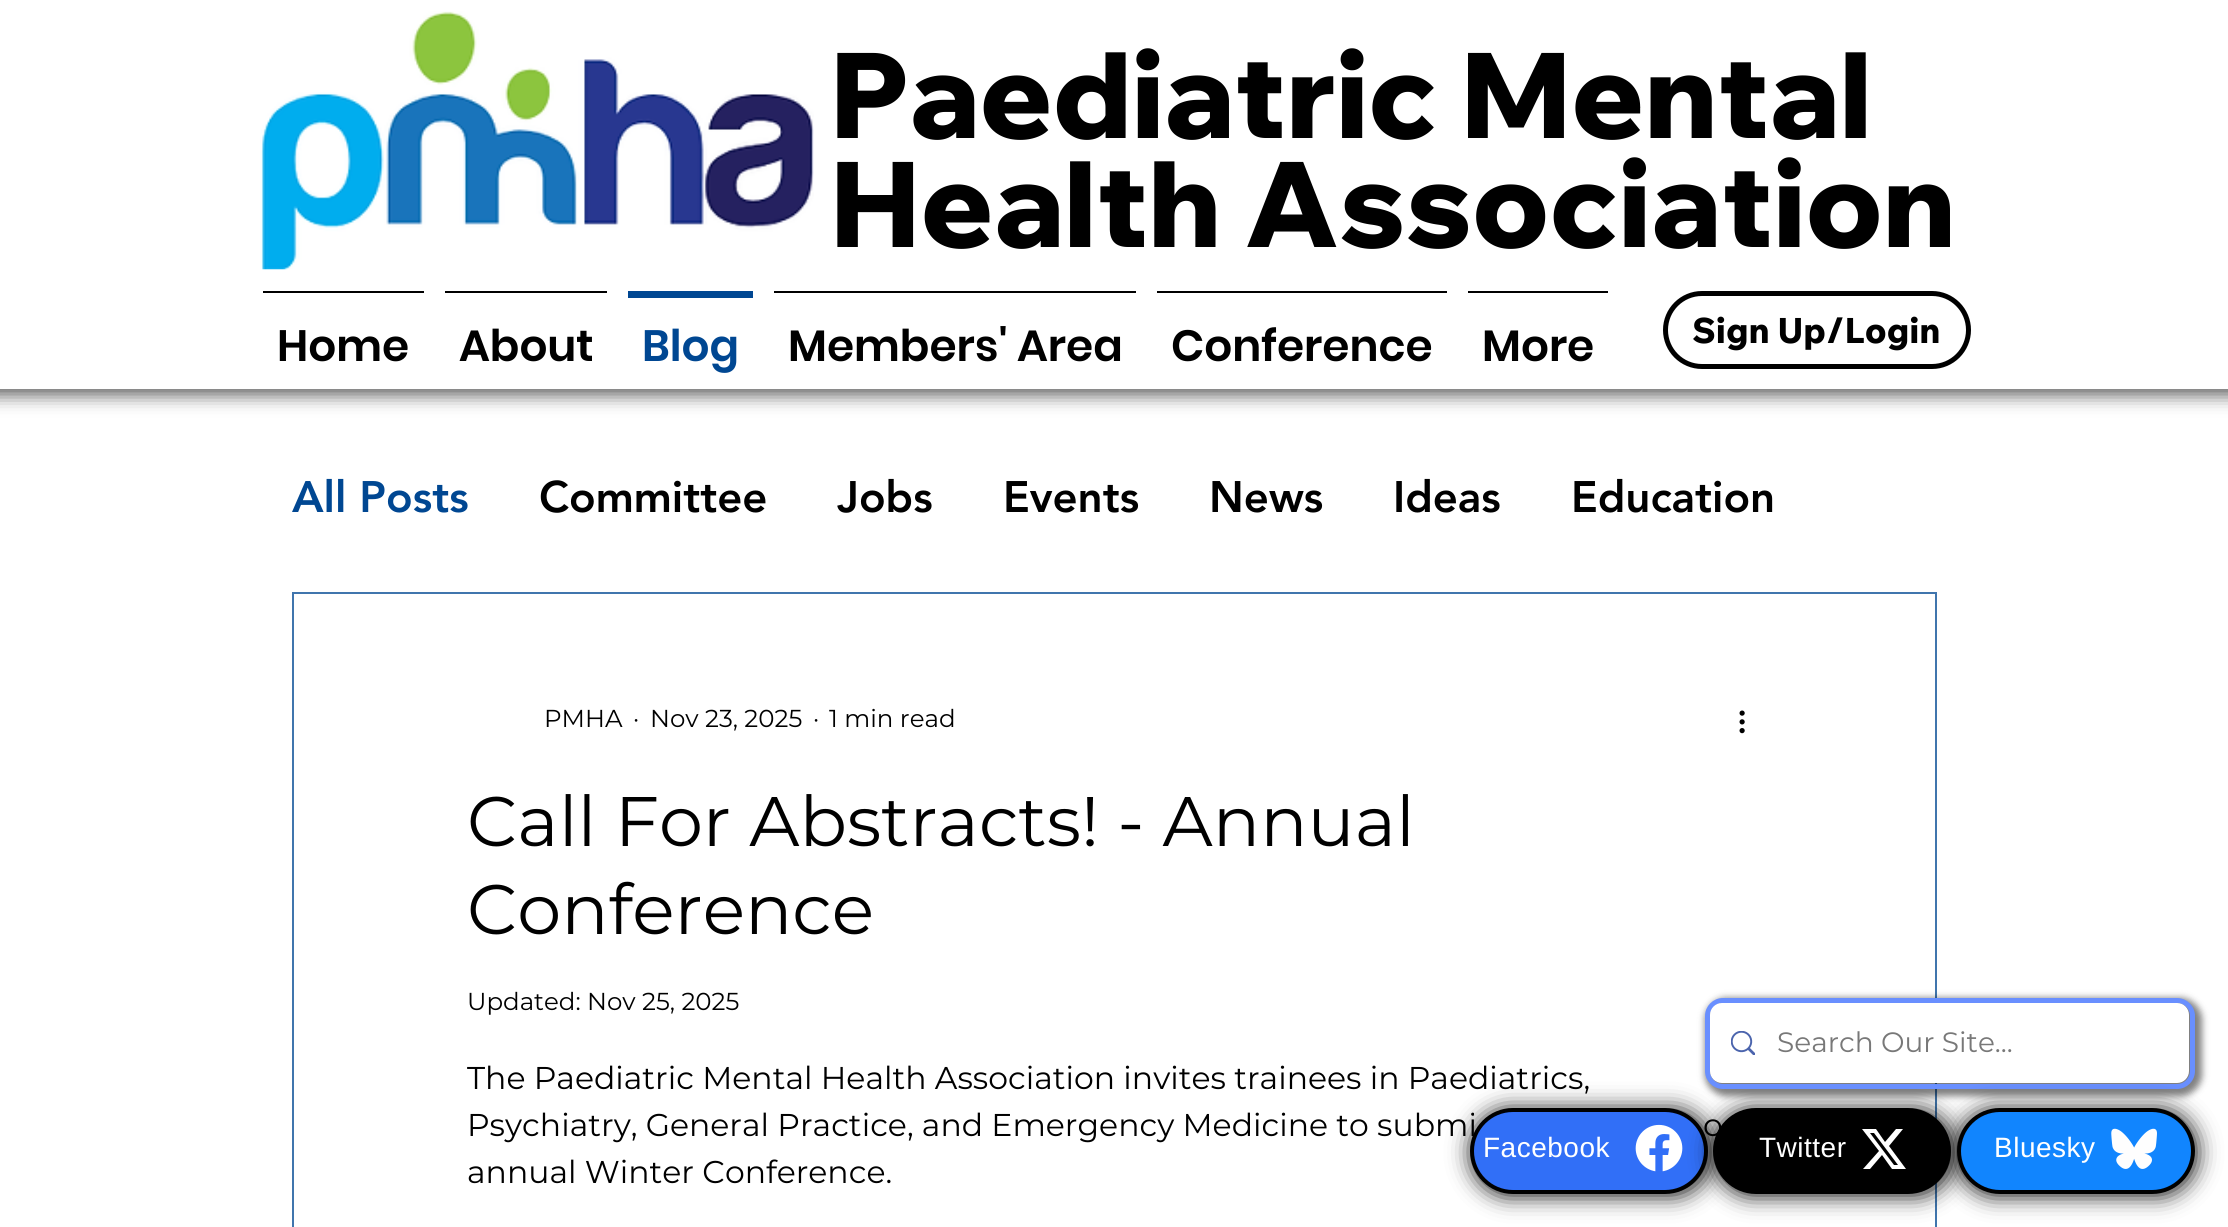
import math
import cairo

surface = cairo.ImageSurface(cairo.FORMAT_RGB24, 2228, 1227)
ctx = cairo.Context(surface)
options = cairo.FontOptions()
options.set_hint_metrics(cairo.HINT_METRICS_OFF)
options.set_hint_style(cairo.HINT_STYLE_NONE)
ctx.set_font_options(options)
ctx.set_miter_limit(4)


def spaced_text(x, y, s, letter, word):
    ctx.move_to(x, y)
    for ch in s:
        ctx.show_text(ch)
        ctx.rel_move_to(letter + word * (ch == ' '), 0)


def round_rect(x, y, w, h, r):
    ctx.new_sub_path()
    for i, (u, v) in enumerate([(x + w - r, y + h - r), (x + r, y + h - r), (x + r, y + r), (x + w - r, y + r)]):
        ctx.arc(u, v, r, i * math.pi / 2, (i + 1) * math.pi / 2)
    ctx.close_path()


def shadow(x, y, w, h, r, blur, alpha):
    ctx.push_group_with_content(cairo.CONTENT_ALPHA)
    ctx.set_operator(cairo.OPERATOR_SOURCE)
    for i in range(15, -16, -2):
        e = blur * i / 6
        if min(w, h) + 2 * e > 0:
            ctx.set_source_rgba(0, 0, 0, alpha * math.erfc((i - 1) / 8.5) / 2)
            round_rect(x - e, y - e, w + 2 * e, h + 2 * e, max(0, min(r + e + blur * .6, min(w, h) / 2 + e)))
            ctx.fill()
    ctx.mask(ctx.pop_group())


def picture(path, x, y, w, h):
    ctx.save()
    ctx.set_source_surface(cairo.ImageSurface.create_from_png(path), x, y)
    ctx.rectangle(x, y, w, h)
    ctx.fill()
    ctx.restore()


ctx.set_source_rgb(1, 1, 1)
ctx.paint()
ctx.set_source_rgb(0, 0, 0)
shadow(-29, -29, 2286, 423, 0, 9.5, 0.7)
ctx.set_source_rgb(1, 1, 1)
ctx.rectangle(0, 0, 2228, 389)
ctx.fill()
picture("img1.png", 260, 11, 554, 259)
ctx.select_font_face("Wix Madefor Display ExtraBold")
ctx.set_font_size(119)
ctx.set_source_rgb(0, 0, 0)
ctx.move_to(830, 138)
ctx.show_text("Paediatric Mental")
ctx.move_to(830, 247)
ctx.show_text("Health Association")
ctx.rectangle(263, 291, 161, 2)
ctx.fill()
ctx.select_font_face("Poppins SemiBold")
ctx.set_font_size(43.75)
ctx.move_to(277, 361)
ctx.show_text("Home")
ctx.rectangle(445, 291, 162, 2)
ctx.fill()
ctx.move_to(459, 361)
ctx.show_text("About")
ctx.set_source_rgb(0, 0.278, 0.573)
ctx.rectangle(628, 291, 125, 7)
ctx.fill()
ctx.move_to(642, 361)
ctx.show_text("Blog")
ctx.set_source_rgb(0, 0, 0)
ctx.rectangle(774, 291, 362, 2)
ctx.fill()
ctx.move_to(788, 361)
ctx.show_text("Members' Area")
ctx.rectangle(1157, 291, 290, 2)
ctx.fill()
ctx.move_to(1171, 361)
ctx.show_text("Conference")
ctx.rectangle(1468, 291, 140, 2)
ctx.fill()
ctx.move_to(1482, 361)
ctx.show_text("More")
round_rect(1665.5, 293.5, 303, 73, 36.5)
ctx.set_line_width(5)
ctx.stroke()
ctx.select_font_face("Wix Madefor Text ExtraBold")
ctx.set_font_size(35)
ctx.move_to(1692, 343)
ctx.show_text("Sign Up/Login")
ctx.select_font_face("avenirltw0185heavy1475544 Black")
ctx.set_font_size(43.75)
ctx.set_source_rgb(0, 0.278, 0.573)
ctx.move_to(292, 512)
ctx.show_text("All Posts")
ctx.set_source_rgb(0, 0, 0)
ctx.move_to(539, 512)
ctx.show_text("Committee")
ctx.move_to(837, 512)
ctx.show_text("Jobs")
ctx.move_to(1003, 512)
ctx.show_text("Events")
ctx.move_to(1209, 512)
ctx.show_text("News")
ctx.move_to(1393, 512)
ctx.show_text("Ideas")
ctx.move_to(1571, 512)
ctx.show_text("Education")
ctx.rectangle(293, 593, 1643, 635)
ctx.set_source_rgb(0.251, 0.459, 0.678)
ctx.set_line_width(2)
ctx.stroke()
ctx.select_font_face("Montserrat")
ctx.set_font_size(24.5)
ctx.set_source_rgb(0, 0, 0)
ctx.move_to(544, 727)
ctx.show_text("PMHA")
ctx.move_to(633, 727)
ctx.show_text("·")
ctx.move_to(650, 727)
ctx.show_text("Nov 23, 2025")
ctx.move_to(813, 727)
ctx.show_text("·")
ctx.move_to(829, 727)
ctx.show_text("1 min read")
picture("img2.png", 1739, 710, 6, 24)
ctx.set_font_size(70)
ctx.move_to(467, 846)
ctx.show_text("Call For Abstracts! - Annual")
ctx.move_to(467, 934)
ctx.show_text("Conference")
ctx.set_font_size(24.5)
ctx.move_to(467, 1010)
ctx.show_text("Updated: Nov 25, 2025")
ctx.set_font_size(31.5)
ctx.move_to(467, 1089)
ctx.show_text("The Paediatric Mental Health Association invites trainees in Paediatrics,")
ctx.move_to(467, 1136)
ctx.show_text("Psychiatry, General Practice, and Emergency Medicine to submi")
ctx.move_to(1703, 1136)
ctx.show_text("o")
ctx.move_to(467, 1183)
ctx.show_text("annual Winter Conference.")
ctx.set_source_rgb(0, 0, 0)
shadow(1705, 998, 497, 98, 21, 3.5, 0.5)
shadow(1472, 1110, 238, 85, 42.5, 11.5, 1)
ctx.set_source_rgb(0.192, 0.435, 0.965)
round_rect(1472, 1110, 234, 82, 41)
ctx.fill_preserve()
ctx.set_source_rgb(0, 0, 0)
ctx.set_line_width(4)
ctx.stroke()
picture("img4.png", 1635, 1124, 48, 48)
ctx.set_source_rgb(0, 0, 0)
shadow(1715, 1110, 238, 85, 42.5, 11.5, 1)
round_rect(1707.5, 1000.5, 485, 86, 15.5)
ctx.set_source_rgb(0.412, 0.561, 1)
ctx.set_line_width(5)
ctx.stroke()
ctx.set_source_rgb(1, 1, 1)
round_rect(1710, 1003, 479, 80, 12)
ctx.fill()
picture("img3.png", 1731, 1031, 24, 24)
ctx.set_font_size(28)
ctx.set_source_rgb(0.471, 0.471, 0.471)
ctx.move_to(1777, 1052)
ctx.show_text("Search Our Site...")
ctx.select_font_face("Liberation Sans")
ctx.set_source_rgb(1, 1, 1)
spaced_text(1483, 1157, "Facebook", 0.5, 0)
ctx.set_source_rgb(0, 0, 0)
round_rect(1715, 1110, 234, 82, 41)
ctx.fill_preserve()
ctx.set_line_width(4)
ctx.stroke()
ctx.set_source_rgb(1, 1, 1)
spaced_text(1759, 1157, "Twitter", 0.5, 0)
ctx.new_path()
ctx.move_to(1896, 1129)
ctx.line_to(1903, 1129)
ctx.line_to(1889, 1146)
ctx.line_to(1906, 1169)
ctx.line_to(1892, 1169)
ctx.line_to(1882, 1155)
ctx.line_to(1870, 1169)
ctx.line_to(1863, 1169)
ctx.line_to(1879, 1151)
ctx.line_to(1862, 1129)
ctx.line_to(1876, 1129)
ctx.line_to(1885, 1142)
ctx.close_path()
ctx.move_to(1894, 1165)
ctx.line_to(1898, 1165)
ctx.line_to(1874, 1133)
ctx.line_to(1870, 1133)
ctx.close_path()
ctx.fill()
ctx.set_source_rgb(0, 0, 0)
shadow(1958, 1110, 238, 85, 42.5, 11.5, 1)
ctx.set_source_rgb(0.067, 0.522, 0.996)
round_rect(1959, 1110, 234, 82, 41)
ctx.fill_preserve()
ctx.set_source_rgb(0, 0, 0)
ctx.stroke()
ctx.set_source_rgb(1, 1, 1)
spaced_text(1994, 1157, "Bluesky", 0.5, 0)
picture("img5.png", 2111, 1128, 46, 41)
surface.write_to_png("page.png")
